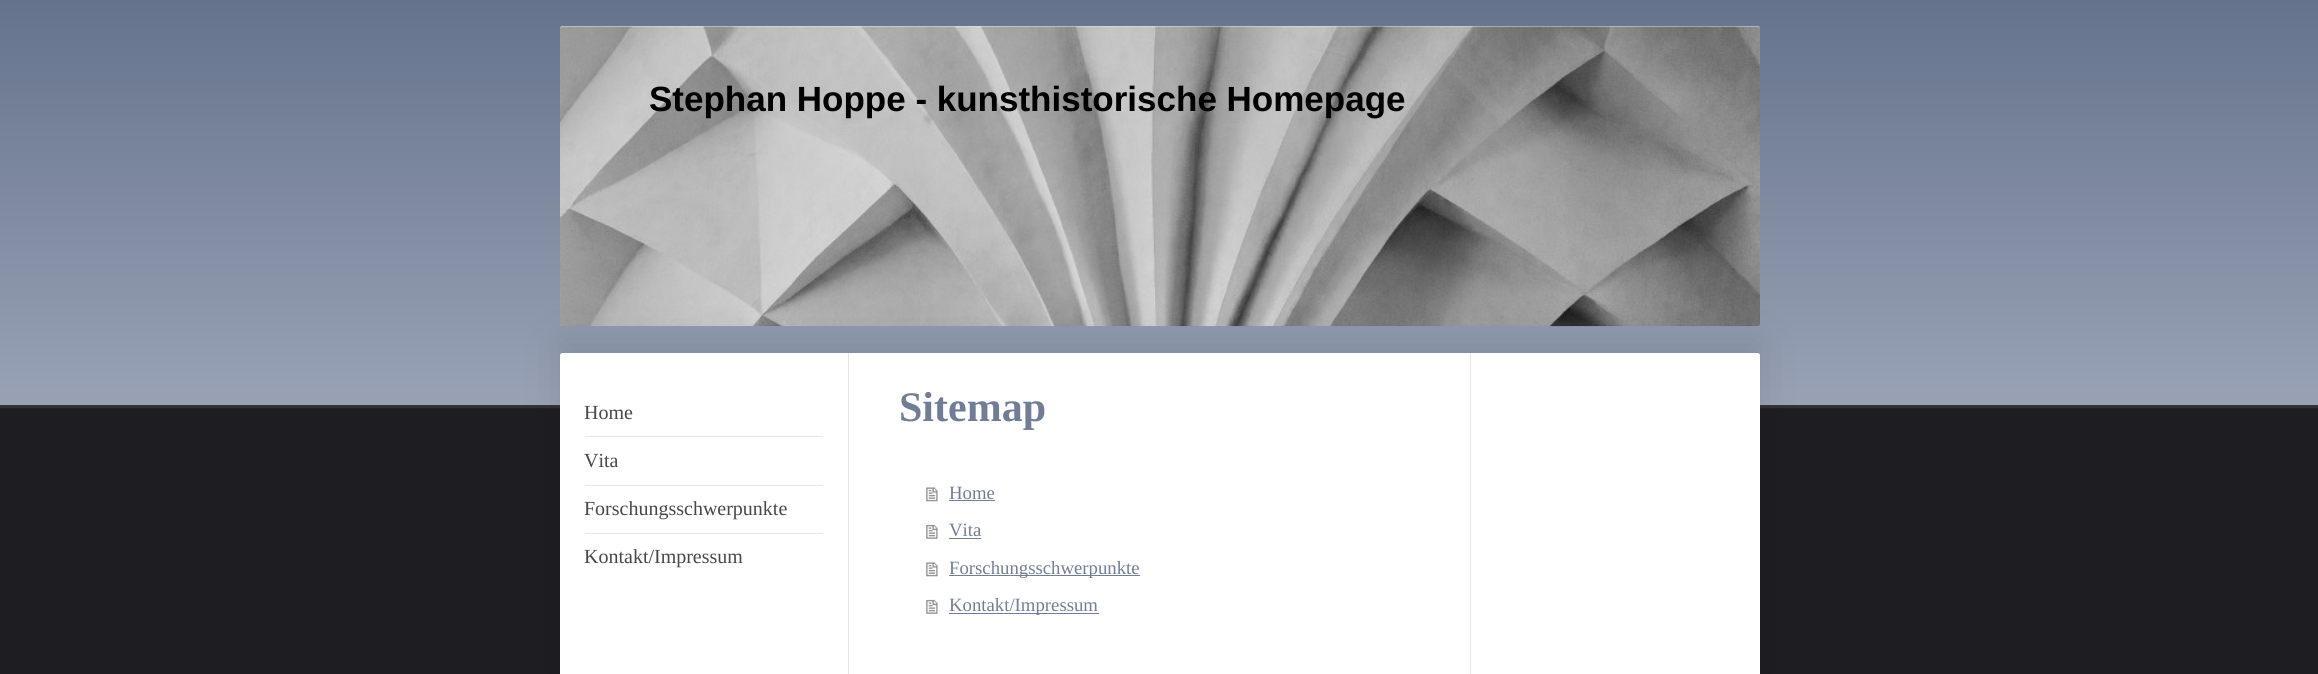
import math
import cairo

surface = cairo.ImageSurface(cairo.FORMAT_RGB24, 2318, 674)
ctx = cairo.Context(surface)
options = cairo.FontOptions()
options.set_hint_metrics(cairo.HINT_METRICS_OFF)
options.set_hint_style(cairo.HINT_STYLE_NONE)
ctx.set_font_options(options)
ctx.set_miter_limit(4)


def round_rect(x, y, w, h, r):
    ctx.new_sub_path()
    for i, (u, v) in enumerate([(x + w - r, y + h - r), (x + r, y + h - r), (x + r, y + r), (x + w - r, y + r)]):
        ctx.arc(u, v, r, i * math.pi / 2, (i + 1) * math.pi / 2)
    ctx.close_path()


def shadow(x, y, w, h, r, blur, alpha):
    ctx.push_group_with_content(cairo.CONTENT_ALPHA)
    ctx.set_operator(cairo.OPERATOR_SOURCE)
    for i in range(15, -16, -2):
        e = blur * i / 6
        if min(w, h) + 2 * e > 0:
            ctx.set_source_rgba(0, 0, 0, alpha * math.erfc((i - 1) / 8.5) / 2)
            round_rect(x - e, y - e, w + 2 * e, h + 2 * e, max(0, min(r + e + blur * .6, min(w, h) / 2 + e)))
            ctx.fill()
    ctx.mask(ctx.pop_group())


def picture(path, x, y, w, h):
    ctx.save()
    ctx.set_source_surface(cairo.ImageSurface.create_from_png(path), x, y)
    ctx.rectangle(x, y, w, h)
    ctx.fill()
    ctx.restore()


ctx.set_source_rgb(0.118, 0.118, 0.133)
ctx.paint()
ctx.set_source_rgb(1, 1, 1)
shadow(0, 3, 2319, 405, 0, 0.5, 0.1)
gradient = cairo.LinearGradient(0, 405, 0, 0)
gradient.add_color_stop_rgba(0, 0.6, 0.635, 0.71, 1)
gradient.add_color_stop_rgba(1, 0.396, 0.451, 0.553, 1)
ctx.set_source(gradient)
ctx.rectangle(0, 0, 2318, 405)
ctx.fill()
ctx.set_source_rgb(0.933, 0.933, 0.933)
round_rect(560, 26, 1200, 300, 2.5)
ctx.fill()
picture("img1.png", 560, 26, 1200, 301)
ctx.select_font_face("Liberation Sans", cairo.FONT_SLANT_NORMAL, cairo.FONT_WEIGHT_BOLD)
ctx.set_font_size(35)
ctx.set_source_rgb(0, 0, 0)
ctx.move_to(649, 111)
ctx.show_text("Stephan Hoppe - kunsthistorische Homepage")
ctx.set_source_rgb(0, 0, 0)
shadow(560, 340, 1200, 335, 2.5, 19, 0.1)
ctx.set_source_rgb(1, 1, 1)
round_rect(560, 353, 1200, 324, 2.5)
ctx.fill()
ctx.set_source_rgb(0.902, 0.902, 0.902)
ctx.rectangle(585, 436, 238, 1)
ctx.fill()
ctx.select_font_face("Liberation Serif")
ctx.set_font_size(20)
ctx.set_source_rgb(0.278, 0.278, 0.278)
ctx.move_to(584, 419)
ctx.show_text("Home")
ctx.set_source_rgb(0.902, 0.902, 0.902)
ctx.rectangle(585, 485, 238, 1)
ctx.fill()
ctx.set_source_rgb(0.278, 0.278, 0.278)
ctx.move_to(584, 467)
ctx.show_text("Vita")
ctx.set_source_rgb(0.902, 0.902, 0.902)
ctx.rectangle(585, 533, 238, 1)
ctx.fill()
ctx.set_source_rgb(0.278, 0.278, 0.278)
ctx.move_to(584, 515)
ctx.show_text("Forschungsschwerpunkte")
ctx.move_to(584, 563)
ctx.show_text("Kontakt/Impressum")
ctx.set_source_rgb(0.902, 0.902, 0.902)
ctx.rectangle(1470, 353, 1, 321)
ctx.fill()
ctx.rectangle(848, 353, 1, 321)
ctx.fill()
ctx.select_font_face("Liberation Serif", cairo.FONT_SLANT_NORMAL, cairo.FONT_WEIGHT_BOLD)
ctx.set_font_size(42)
ctx.set_source_rgb(0.443, 0.49, 0.592)
ctx.move_to(899, 421)
ctx.show_text("Sitemap")
picture("img2.png", 926, 487, 12, 15)
ctx.select_font_face("Liberation Serif")
ctx.set_font_size(18.75)
ctx.move_to(949, 499)
ctx.show_text("Home")
ctx.rectangle(949, 500, 46, 1)
ctx.fill()
picture("img3.png", 926, 524, 12, 15)
ctx.move_to(949, 536)
ctx.show_text("Vita")
ctx.rectangle(949, 538, 32, 1)
ctx.fill()
picture("img2.png", 926, 562, 12, 15)
ctx.rectangle(949, 575, 191, 1)
ctx.fill()
ctx.move_to(949, 574)
ctx.show_text("Forschungsschwerpunkte")
picture("img3.png", 926, 599, 12, 15)
ctx.rectangle(949, 613, 150, 1)
ctx.fill()
ctx.move_to(949, 611)
ctx.show_text("Kontakt/Impressum")
surface.write_to_png("page.png")
